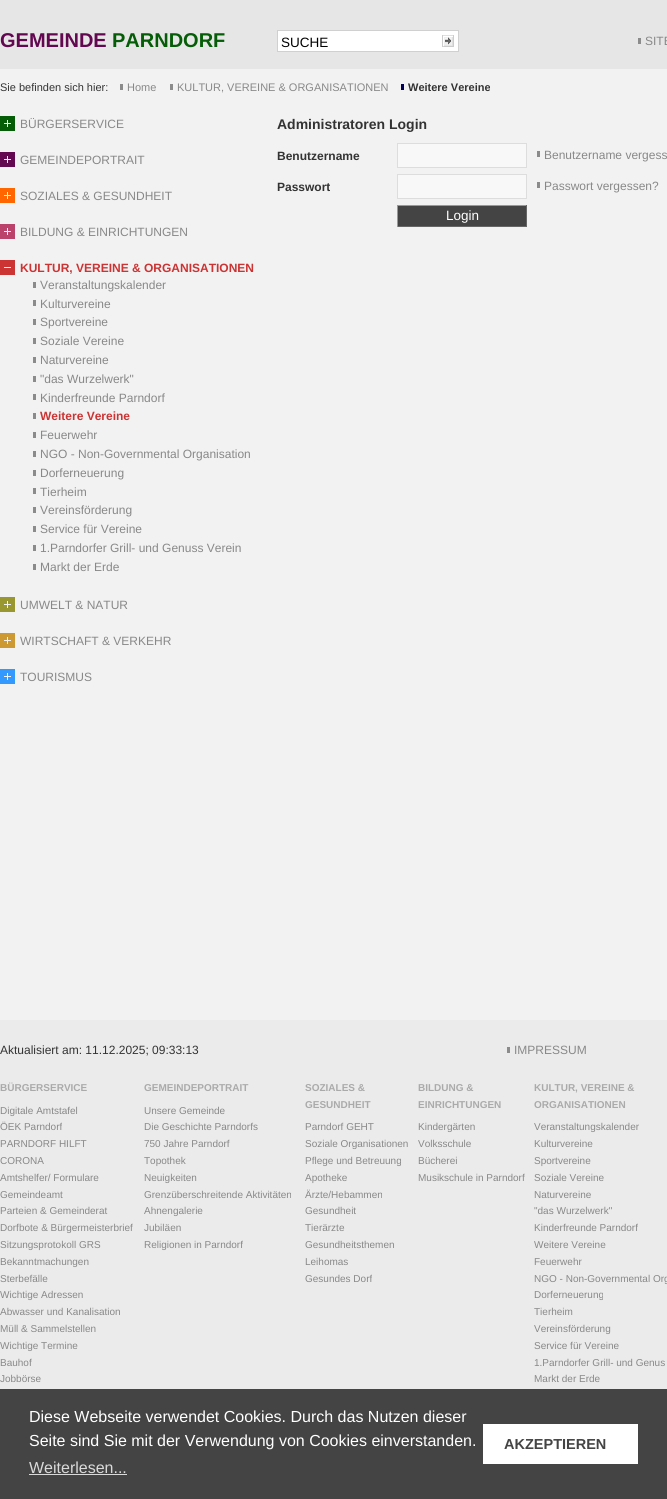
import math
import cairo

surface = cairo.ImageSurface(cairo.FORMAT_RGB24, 667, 1499)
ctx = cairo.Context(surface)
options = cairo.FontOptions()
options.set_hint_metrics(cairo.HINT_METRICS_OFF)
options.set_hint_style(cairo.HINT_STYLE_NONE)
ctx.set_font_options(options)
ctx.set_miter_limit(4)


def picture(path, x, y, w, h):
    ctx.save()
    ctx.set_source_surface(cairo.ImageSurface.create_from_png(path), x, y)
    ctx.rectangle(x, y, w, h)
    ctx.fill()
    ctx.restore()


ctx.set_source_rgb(0.949, 0.949, 0.949)
ctx.paint()
ctx.set_source_rgb(0.902, 0.902, 0.902)
ctx.rectangle(0, 0, 667, 69)
ctx.fill()
ctx.select_font_face("Liberation Sans", cairo.FONT_SLANT_NORMAL, cairo.FONT_WEIGHT_BOLD)
ctx.set_font_size(20)
ctx.set_source_rgb(0.388, 0.031, 0.318)
ctx.move_to(0, 47)
ctx.show_text("GEMEINDE")
ctx.set_source_rgb(0.02, 0.365, 0.031)
ctx.move_to(112, 47)
ctx.show_text("PARNDORF")
ctx.set_source_rgb(1, 1, 1)
ctx.rectangle(277.5, 30.5, 181, 21)
ctx.fill_preserve()
ctx.set_source_rgb(0.816, 0.816, 0.816)
ctx.set_line_width(1)
ctx.stroke()
ctx.select_font_face("Liberation Sans")
ctx.set_font_size(13.5)
ctx.set_source_rgb(0, 0, 0)
ctx.move_to(281, 47)
ctx.show_text("SUCHE")
picture("img1.png", 442, 35, 12, 12)
ctx.set_font_size(12)
ctx.set_source_rgb(0.533, 0.533, 0.533)
ctx.move_to(645, 45)
ctx.show_text("SITE")
ctx.set_source_rgb(0.549, 0.545, 0.545)
ctx.rectangle(638, 38, 3, 6)
ctx.fill()
ctx.set_font_size(11)
ctx.set_source_rgb(0.2, 0.2, 0.2)
ctx.move_to(0, 91)
ctx.show_text("Sie befinden sich hier:")
ctx.set_source_rgb(0.533, 0.533, 0.533)
ctx.move_to(127, 91)
ctx.show_text("Home")
ctx.set_source_rgb(0.549, 0.545, 0.545)
ctx.rectangle(120, 84, 3, 6)
ctx.fill()
ctx.set_source_rgb(0.533, 0.533, 0.533)
ctx.move_to(177, 91)
ctx.show_text("KULTUR, VEREINE & ORGANISATIONEN")
ctx.set_source_rgb(0.549, 0.545, 0.545)
ctx.rectangle(170, 84, 3, 6)
ctx.fill()
ctx.select_font_face("Liberation Sans", cairo.FONT_SLANT_NORMAL, cairo.FONT_WEIGHT_BOLD)
ctx.set_source_rgb(0.2, 0.2, 0.2)
ctx.move_to(408, 91)
ctx.show_text("Weitere Vereine")
ctx.set_source_rgb(0.008, 0, 0.329)
ctx.rectangle(401, 84, 3, 6)
ctx.fill()
ctx.set_source_rgb(0.02, 0.365, 0.035)
ctx.rectangle(0, 116, 15, 15)
ctx.fill()
picture("img2.png", 4, 116, 273, 15)
ctx.select_font_face("Liberation Sans")
ctx.set_font_size(12)
ctx.set_source_rgb(0.533, 0.533, 0.533)
ctx.move_to(20, 128)
ctx.show_text("BÜRGERSERVICE")
ctx.set_source_rgb(0.388, 0.035, 0.318)
ctx.rectangle(0, 152, 15, 15)
ctx.fill()
picture("img3.png", 4, 152, 273, 15)
ctx.set_source_rgb(0.533, 0.533, 0.533)
ctx.move_to(20, 164)
ctx.show_text("GEMEINDEPORTRAIT")
ctx.set_source_rgb(1, 0.4, 0)
ctx.rectangle(0, 188, 15, 15)
ctx.fill()
picture("img4.png", 4, 188, 273, 15)
ctx.set_source_rgb(0.533, 0.533, 0.533)
ctx.move_to(20, 200)
ctx.show_text("SOZIALES & GESUNDHEIT")
ctx.set_source_rgb(0.733, 0.259, 0.42)
ctx.rectangle(0, 224, 15, 15)
ctx.fill()
picture("img5.png", 4, 224, 273, 15)
ctx.set_source_rgb(0.533, 0.533, 0.533)
ctx.move_to(20, 236)
ctx.show_text("BILDUNG & EINRICHTUNGEN")
ctx.set_source_rgb(0.8, 0.2, 0.2)
ctx.rectangle(0, 260, 15, 15)
ctx.fill()
picture("img6.png", 4, 260, 273, 15)
ctx.select_font_face("Liberation Sans", cairo.FONT_SLANT_NORMAL, cairo.FONT_WEIGHT_BOLD)
ctx.move_to(20, 272)
ctx.show_text("KULTUR, VEREINE & ORGANISATIONEN")
ctx.set_source_rgb(0.549, 0.545, 0.545)
ctx.rectangle(33, 282, 3, 6)
ctx.fill()
ctx.select_font_face("Liberation Sans")
ctx.set_source_rgb(0.533, 0.533, 0.533)
ctx.move_to(40, 289)
ctx.show_text("Veranstaltungskalender")
ctx.set_source_rgb(0.549, 0.545, 0.545)
ctx.rectangle(33, 300, 3, 6)
ctx.fill()
ctx.set_source_rgb(0.533, 0.533, 0.533)
ctx.move_to(40, 308)
ctx.show_text("Kulturvereine")
ctx.set_source_rgb(0.549, 0.545, 0.545)
ctx.rectangle(33, 319, 3, 6)
ctx.fill()
ctx.set_source_rgb(0.533, 0.533, 0.533)
ctx.move_to(40, 326)
ctx.show_text("Sportvereine")
ctx.set_source_rgb(0.549, 0.545, 0.545)
ctx.rectangle(33, 338, 3, 6)
ctx.fill()
ctx.set_source_rgb(0.533, 0.533, 0.533)
ctx.move_to(40, 345)
ctx.show_text("Soziale Vereine")
ctx.set_source_rgb(0.549, 0.545, 0.545)
ctx.rectangle(33, 357, 3, 6)
ctx.fill()
ctx.set_source_rgb(0.533, 0.533, 0.533)
ctx.move_to(40, 364)
ctx.show_text("Naturvereine")
ctx.set_source_rgb(0.549, 0.545, 0.545)
ctx.rectangle(33, 376, 3, 6)
ctx.fill()
ctx.set_source_rgb(0.533, 0.533, 0.533)
ctx.move_to(40, 383)
ctx.show_text("\"das Wurzelwerk\"")
ctx.set_source_rgb(0.549, 0.545, 0.545)
ctx.rectangle(33, 394, 3, 6)
ctx.fill()
ctx.set_source_rgb(0.533, 0.533, 0.533)
ctx.move_to(40, 402)
ctx.show_text("Kinderfreunde Parndorf")
ctx.set_source_rgb(0.549, 0.545, 0.545)
ctx.rectangle(33, 413, 3, 6)
ctx.fill()
ctx.select_font_face("Liberation Sans", cairo.FONT_SLANT_NORMAL, cairo.FONT_WEIGHT_BOLD)
ctx.set_source_rgb(0.8, 0.2, 0.2)
ctx.move_to(40, 420)
ctx.show_text("Weitere Vereine")
ctx.set_source_rgb(0.549, 0.545, 0.545)
ctx.rectangle(33, 432, 3, 6)
ctx.fill()
ctx.select_font_face("Liberation Sans")
ctx.set_source_rgb(0.533, 0.533, 0.533)
ctx.move_to(40, 439)
ctx.show_text("Feuerwehr")
ctx.set_source_rgb(0.549, 0.545, 0.545)
ctx.rectangle(33, 451, 3, 6)
ctx.fill()
ctx.set_source_rgb(0.533, 0.533, 0.533)
ctx.move_to(40, 458)
ctx.show_text("NGO - Non-Governmental Organisation")
ctx.set_source_rgb(0.549, 0.545, 0.545)
ctx.rectangle(33, 470, 3, 6)
ctx.fill()
ctx.set_source_rgb(0.533, 0.533, 0.533)
ctx.move_to(40, 477)
ctx.show_text("Dorferneuerung")
ctx.set_source_rgb(0.549, 0.545, 0.545)
ctx.rectangle(33, 488, 3, 6)
ctx.fill()
ctx.set_source_rgb(0.533, 0.533, 0.533)
ctx.move_to(40, 496)
ctx.show_text("Tierheim")
ctx.set_source_rgb(0.549, 0.545, 0.545)
ctx.rectangle(33, 507, 3, 6)
ctx.fill()
ctx.set_source_rgb(0.533, 0.533, 0.533)
ctx.move_to(40, 514)
ctx.show_text("Vereinsförderung")
ctx.set_source_rgb(0.549, 0.545, 0.545)
ctx.rectangle(33, 526, 3, 6)
ctx.fill()
ctx.set_source_rgb(0.533, 0.533, 0.533)
ctx.move_to(40, 533)
ctx.show_text("Service für Vereine")
ctx.set_source_rgb(0.549, 0.545, 0.545)
ctx.rectangle(33, 545, 3, 6)
ctx.fill()
ctx.set_source_rgb(0.533, 0.533, 0.533)
ctx.move_to(40, 552)
ctx.show_text("1.Parndorfer Grill- und Genuss Verein")
ctx.set_source_rgb(0.549, 0.545, 0.545)
ctx.rectangle(33, 564, 3, 6)
ctx.fill()
ctx.set_source_rgb(0.533, 0.533, 0.533)
ctx.move_to(40, 571)
ctx.show_text("Markt der Erde")
ctx.set_source_rgb(0.6, 0.592, 0.184)
ctx.rectangle(0, 597, 15, 15)
ctx.fill()
picture("img7.png", 4, 597, 273, 15)
ctx.set_source_rgb(0.533, 0.533, 0.533)
ctx.move_to(20, 609)
ctx.show_text("UMWELT & NATUR")
ctx.set_source_rgb(0.8, 0.6, 0.2)
ctx.rectangle(0, 633, 15, 15)
ctx.fill()
picture("img8.png", 4, 633, 273, 15)
ctx.set_source_rgb(0.533, 0.533, 0.533)
ctx.move_to(20, 645)
ctx.show_text("WIRTSCHAFT & VERKEHR")
ctx.set_source_rgb(0.2, 0.6, 1)
ctx.rectangle(0, 669, 15, 15)
ctx.fill()
picture("img9.png", 4, 669, 273, 15)
ctx.set_source_rgb(0.533, 0.533, 0.533)
ctx.move_to(20, 681)
ctx.show_text("TOURISMUS")
ctx.select_font_face("Liberation Sans", cairo.FONT_SLANT_NORMAL, cairo.FONT_WEIGHT_BOLD)
ctx.set_font_size(14)
ctx.set_source_rgb(0.2, 0.2, 0.2)
ctx.move_to(277, 129)
ctx.show_text("Administratoren Login")
ctx.set_font_size(12)
ctx.move_to(277, 160)
ctx.show_text("Benutzername")
ctx.set_source_rgb(0.969, 0.969, 0.969)
ctx.rectangle(397.5, 143.5, 129, 24)
ctx.fill_preserve()
ctx.set_source_rgb(0.867, 0.867, 0.867)
ctx.stroke()
ctx.select_font_face("Liberation Sans")
ctx.set_source_rgb(0.533, 0.533, 0.533)
ctx.move_to(544, 159)
ctx.show_text("Benutzername vergess")
ctx.set_source_rgb(0.549, 0.545, 0.545)
ctx.rectangle(537, 151, 3, 6)
ctx.fill()
ctx.select_font_face("Liberation Sans", cairo.FONT_SLANT_NORMAL, cairo.FONT_WEIGHT_BOLD)
ctx.set_source_rgb(0.2, 0.2, 0.2)
ctx.move_to(277, 191)
ctx.show_text("Passwort")
ctx.set_source_rgb(0.969, 0.969, 0.969)
ctx.rectangle(397.5, 174.5, 129, 24)
ctx.fill_preserve()
ctx.set_source_rgb(0.867, 0.867, 0.867)
ctx.stroke()
ctx.select_font_face("Liberation Sans")
ctx.set_source_rgb(0.533, 0.533, 0.533)
ctx.move_to(544, 190)
ctx.show_text("Passwort vergessen?")
ctx.set_source_rgb(0.549, 0.545, 0.545)
ctx.rectangle(537, 182, 3, 6)
ctx.fill()
ctx.set_source_rgb(0.267, 0.267, 0.267)
ctx.rectangle(398, 206, 128, 20)
ctx.fill()
ctx.set_source_rgb(0.6, 0.6, 0.6)
ctx.rectangle(397, 205, 130, 1)
ctx.fill()
ctx.set_source_rgb(0.4, 0.4, 0.4)
ctx.rectangle(526, 205, 1, 22)
ctx.fill()
ctx.rectangle(397, 226, 130, 1)
ctx.fill()
ctx.set_source_rgb(0.6, 0.6, 0.6)
ctx.rectangle(397, 205, 1, 22)
ctx.fill()
ctx.set_font_size(13.5)
ctx.set_source_rgb(1, 1, 1)
ctx.move_to(446, 220)
ctx.show_text("Login")
ctx.set_source_rgb(0.918, 0.918, 0.918)
ctx.rectangle(0, 1020, 667, 369)
ctx.fill()
ctx.set_font_size(12)
ctx.set_source_rgb(0.2, 0.2, 0.2)
ctx.move_to(0, 1054)
ctx.show_text("Aktualisiert am: 11.12.2025; 09:33:13")
ctx.set_source_rgb(0.549, 0.545, 0.545)
ctx.rectangle(507, 1047, 3, 6)
ctx.fill()
ctx.set_source_rgb(0.533, 0.533, 0.533)
ctx.move_to(514, 1054)
ctx.show_text("IMPRESSUM")
ctx.select_font_face("Liberation Sans", cairo.FONT_SLANT_NORMAL, cairo.FONT_WEIGHT_BOLD)
ctx.set_font_size(10)
ctx.set_source_rgb(0.667, 0.667, 0.667)
ctx.move_to(0, 1091)
ctx.show_text("BÜRGERSERVICE")
ctx.select_font_face("Liberation Sans")
ctx.set_source_rgb(0.533, 0.533, 0.533)
ctx.move_to(0, 1114)
ctx.show_text("Digitale Amtstafel")
ctx.move_to(0, 1130)
ctx.show_text("ÖEK Parndorf")
ctx.move_to(0, 1147)
ctx.show_text("PARNDORF HILFT")
ctx.move_to(0, 1164)
ctx.show_text("CORONA")
ctx.move_to(0, 1181)
ctx.show_text("Amtshelfer/ Formulare")
ctx.move_to(0, 1198)
ctx.show_text("Gemeindeamt")
ctx.move_to(0, 1214)
ctx.show_text("Parteien & Gemeinderat")
ctx.move_to(0, 1231)
ctx.show_text("Dorfbote & Bürgermeisterbrief")
ctx.move_to(0, 1248)
ctx.show_text("Sitzungsprotokoll GRS")
ctx.move_to(0, 1265)
ctx.show_text("Bekanntmachungen")
ctx.move_to(0, 1282)
ctx.show_text("Sterbefälle")
ctx.move_to(0, 1298)
ctx.show_text("Wichtige Adressen")
ctx.move_to(0, 1315)
ctx.show_text("Abwasser und Kanalisation")
ctx.move_to(0, 1332)
ctx.show_text("Müll & Sammelstellen")
ctx.move_to(0, 1349)
ctx.show_text("Wichtige Termine")
ctx.move_to(0, 1366)
ctx.show_text("Bauhof")
ctx.move_to(0, 1382)
ctx.show_text("Jobbörse")
ctx.select_font_face("Liberation Sans", cairo.FONT_SLANT_NORMAL, cairo.FONT_WEIGHT_BOLD)
ctx.set_source_rgb(0.667, 0.667, 0.667)
ctx.move_to(144, 1091)
ctx.show_text("GEMEINDEPORTRAIT")
ctx.select_font_face("Liberation Sans")
ctx.set_source_rgb(0.533, 0.533, 0.533)
ctx.move_to(144, 1114)
ctx.show_text("Unsere Gemeinde")
ctx.move_to(144, 1130)
ctx.show_text("Die Geschichte Parndorfs")
ctx.move_to(144, 1147)
ctx.show_text("750 Jahre Parndorf")
ctx.move_to(144, 1164)
ctx.show_text("Topothek")
ctx.move_to(144, 1181)
ctx.show_text("Neuigkeiten")
ctx.move_to(144, 1198)
ctx.show_text("Grenzüberschreitende Aktivitäten")
ctx.move_to(144, 1214)
ctx.show_text("Ahnengalerie")
ctx.move_to(144, 1231)
ctx.show_text("Jubiläen")
ctx.move_to(144, 1248)
ctx.show_text("Religionen in Parndorf")
ctx.select_font_face("Liberation Sans", cairo.FONT_SLANT_NORMAL, cairo.FONT_WEIGHT_BOLD)
ctx.set_source_rgb(0.667, 0.667, 0.667)
ctx.move_to(305, 1091)
ctx.show_text("SOZIALES &")
ctx.move_to(305, 1108)
ctx.show_text("GESUNDHEIT")
ctx.select_font_face("Liberation Sans")
ctx.set_source_rgb(0.533, 0.533, 0.533)
ctx.move_to(305, 1130)
ctx.show_text("Parndorf GEHT")
ctx.move_to(305, 1147)
ctx.show_text("Soziale Organisationen")
ctx.move_to(305, 1164)
ctx.show_text("Pflege und Betreuung")
ctx.move_to(305, 1181)
ctx.show_text("Apotheke")
ctx.move_to(305, 1198)
ctx.show_text("Ärzte/Hebammen")
ctx.move_to(305, 1214)
ctx.show_text("Gesundheit")
ctx.move_to(305, 1231)
ctx.show_text("Tierärzte")
ctx.move_to(305, 1248)
ctx.show_text("Gesundheitsthemen")
ctx.move_to(305, 1265)
ctx.show_text("Leihomas")
ctx.move_to(305, 1282)
ctx.show_text("Gesundes Dorf")
ctx.select_font_face("Liberation Sans", cairo.FONT_SLANT_NORMAL, cairo.FONT_WEIGHT_BOLD)
ctx.set_source_rgb(0.667, 0.667, 0.667)
ctx.move_to(418, 1091)
ctx.show_text("BILDUNG &")
ctx.move_to(418, 1108)
ctx.show_text("EINRICHTUNGEN")
ctx.select_font_face("Liberation Sans")
ctx.set_source_rgb(0.533, 0.533, 0.533)
ctx.move_to(418, 1130)
ctx.show_text("Kindergärten")
ctx.move_to(418, 1147)
ctx.show_text("Volksschule")
ctx.move_to(418, 1164)
ctx.show_text("Bücherei")
ctx.move_to(418, 1181)
ctx.show_text("Musikschule in Parndorf")
ctx.select_font_face("Liberation Sans", cairo.FONT_SLANT_NORMAL, cairo.FONT_WEIGHT_BOLD)
ctx.set_source_rgb(0.667, 0.667, 0.667)
ctx.move_to(534, 1091)
ctx.show_text("KULTUR, VEREINE &")
ctx.move_to(534, 1108)
ctx.show_text("ORGANISATIONEN")
ctx.select_font_face("Liberation Sans")
ctx.set_source_rgb(0.533, 0.533, 0.533)
ctx.move_to(534, 1130)
ctx.show_text("Veranstaltungskalender")
ctx.move_to(534, 1147)
ctx.show_text("Kulturvereine")
ctx.move_to(534, 1164)
ctx.show_text("Sportvereine")
ctx.move_to(534, 1181)
ctx.show_text("Soziale Vereine")
ctx.move_to(534, 1198)
ctx.show_text("Naturvereine")
ctx.move_to(534, 1214)
ctx.show_text("\"das Wurzelwerk\"")
ctx.move_to(534, 1231)
ctx.show_text("Kinderfreunde Parndorf")
ctx.move_to(534, 1248)
ctx.show_text("Weitere Vereine")
ctx.move_to(534, 1265)
ctx.show_text("Feuerwehr")
ctx.move_to(534, 1282)
ctx.show_text("NGO - Non-Governmental Org")
ctx.move_to(534, 1298)
ctx.show_text("Dorferneuerung")
ctx.move_to(534, 1315)
ctx.show_text("Tierheim")
ctx.move_to(534, 1332)
ctx.show_text("Vereinsförderung")
ctx.move_to(534, 1349)
ctx.show_text("Service für Vereine")
ctx.move_to(534, 1366)
ctx.show_text("1.Parndorfer Grill- und Genus")
ctx.move_to(534, 1382)
ctx.show_text("Markt der Erde")
ctx.set_source_rgb(0.267, 0.267, 0.267)
ctx.rectangle(0, 1389, 667, 110)
ctx.fill()
ctx.set_font_size(16)
ctx.set_source_rgb(1, 1, 1)
ctx.move_to(29, 1422)
ctx.show_text("Diese Webseite verwendet Cookies. Durch das Nutzen dieser")
ctx.move_to(29, 1446)
ctx.show_text("Seite sind Sie mit der Verwendung von Cookies einverstanden.")
ctx.set_source_rgb(0.855, 0.855, 0.855)
ctx.move_to(29, 1473)
ctx.show_text("Weiterlesen...")
ctx.rectangle(29, 1474, 98, 1)
ctx.fill()
ctx.set_source_rgb(1, 1, 1)
ctx.rectangle(483, 1424, 155, 40)
ctx.fill()
ctx.select_font_face("Liberation Sans", cairo.FONT_SLANT_NORMAL, cairo.FONT_WEIGHT_BOLD)
ctx.set_font_size(14.5)
ctx.set_source_rgb(0.267, 0.267, 0.267)
ctx.move_to(504, 1449)
ctx.show_text("AKZEPTIEREN")
surface.write_to_png("page.png")
